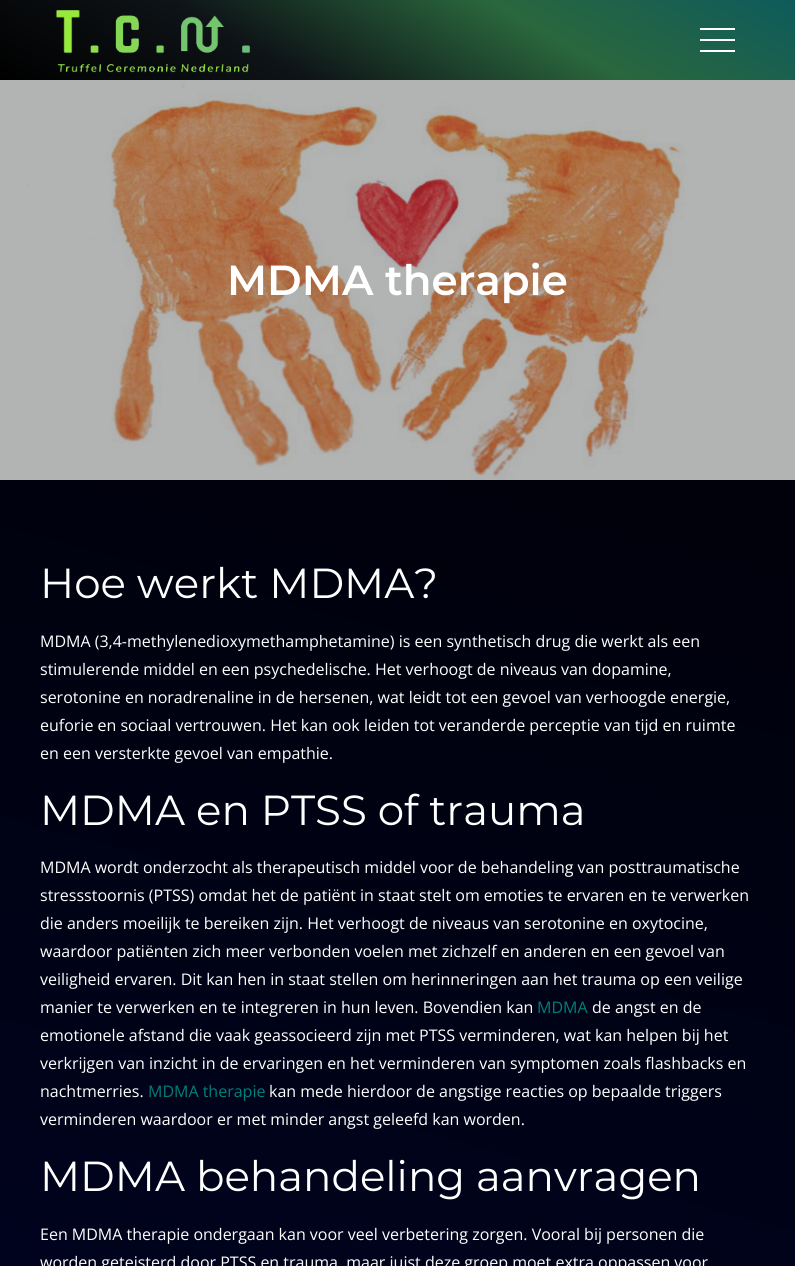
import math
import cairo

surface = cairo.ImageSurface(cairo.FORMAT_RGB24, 795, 1266)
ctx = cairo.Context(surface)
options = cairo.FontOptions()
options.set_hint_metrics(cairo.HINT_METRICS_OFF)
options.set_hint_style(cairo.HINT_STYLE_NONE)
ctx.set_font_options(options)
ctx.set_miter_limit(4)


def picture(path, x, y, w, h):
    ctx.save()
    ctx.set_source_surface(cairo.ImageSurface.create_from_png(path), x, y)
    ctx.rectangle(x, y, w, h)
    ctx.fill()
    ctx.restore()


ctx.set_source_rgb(1, 1, 1)
ctx.paint()
gradient = cairo.LinearGradient(712, -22, 83, 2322)
gradient.add_color_stop_rgba(0, 0, 0, 0, 1)
gradient.add_color_stop_rgba(0.8, 0, 0.016, 0.157, 1)
gradient.add_color_stop_rgba(1, 0, 0.502, 0.478, 1)
ctx.set_source(gradient)
ctx.rectangle(0, 480, 795, 786)
ctx.fill()
gradient = cairo.LinearGradient(281, 242, 514, -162)
gradient.add_color_stop_rgba(0, 0, 0, 0, 1)
gradient.add_color_stop_rgba(0.33, 0.055, 0.075, 0.09, 1)
gradient.add_color_stop_rgba(0.67, 0.165, 0.404, 0.239, 1)
gradient.add_color_stop_rgba(1, 0.055, 0.357, 0.361, 1)
ctx.set_source(gradient)
ctx.rectangle(0, 0, 795, 80)
ctx.fill()
picture("img1.png", 55, 10, 195, 63)
ctx.set_source_rgb(1, 1, 1)
ctx.rectangle(700, 28, 35, 2)
ctx.fill()
ctx.rectangle(700, 39, 35, 2)
ctx.fill()
ctx.rectangle(700, 50, 35, 2)
ctx.fill()
picture("img2.png", 0, 80, 795, 400)
ctx.select_font_face("Montserrat SemiBold")
ctx.set_font_size(42)
ctx.move_to(227, 295)
ctx.show_text("MDMA therapie")
ctx.select_font_face("Montserrat")
ctx.move_to(40, 598)
ctx.show_text("Hoe werkt MDMA?")
ctx.select_font_face("Open Sans")
ctx.set_font_size(16)
ctx.move_to(40, 647)
ctx.show_text("MDMA (3,4-methylenedioxymethamphetamine) is een synthetisch drug die werkt als een")
ctx.move_to(40, 675)
ctx.show_text("stimulerende middel en een psychedelische. Het verhoogt de niveaus van dopamine,")
ctx.move_to(40, 703)
ctx.show_text("serotonine en noradrenaline in de hersenen, wat leidt tot een gevoel van verhoogde energie,")
ctx.move_to(40, 731)
ctx.show_text("euforie en sociaal vertrouwen. Het kan ook leiden tot veranderde perceptie van tijd en ruimte")
ctx.move_to(40, 759)
ctx.show_text("en een versterkte gevoel van empathie.")
ctx.select_font_face("Montserrat")
ctx.set_font_size(42)
ctx.move_to(40, 825)
ctx.show_text("MDMA en PTSS of trauma")
ctx.select_font_face("Open Sans")
ctx.set_font_size(16)
ctx.move_to(40, 873)
ctx.show_text("MDMA wordt onderzocht als therapeutisch middel voor de behandeling van posttraumatische")
ctx.move_to(40, 901)
ctx.show_text("stressstoornis (PTSS) omdat het de patiënt in staat stelt om emoties te ervaren en te verwerken")
ctx.move_to(40, 929)
ctx.show_text("die anders moeilijk te bereiken zijn. Het verhoogt de niveaus van serotonine en oxytocine,")
ctx.move_to(40, 957)
ctx.show_text("waardoor patiënten zich meer verbonden voelen met zichzelf en anderen en een gevoel van")
ctx.move_to(40, 985)
ctx.show_text("veiligheid ervaren. Dit kan hen in staat stellen om herinneringen aan het trauma op een veilige")
ctx.move_to(40, 1013)
ctx.show_text("manier te verwerken en te integreren in hun leven. Bovendien kan")
ctx.set_source_rgb(0, 0.502, 0.478)
ctx.move_to(537, 1013)
ctx.show_text("MDMA")
ctx.set_source_rgb(1, 1, 1)
ctx.move_to(592, 1013)
ctx.show_text("de angst en de")
ctx.move_to(40, 1041)
ctx.show_text("emotionele afstand die vaak geassocieerd zijn met PTSS verminderen, wat kan helpen bij het")
ctx.move_to(40, 1069)
ctx.show_text("verkrijgen van inzicht in de ervaringen en het verminderen van symptomen zoals flashbacks en")
ctx.move_to(40, 1097)
ctx.show_text("nachtmerries.")
ctx.set_source_rgb(0, 0.502, 0.478)
ctx.move_to(148, 1097)
ctx.show_text("MDMA therapie")
ctx.set_source_rgb(1, 1, 1)
ctx.move_to(269, 1097)
ctx.show_text("kan mede hierdoor de angstige reacties op bepaalde triggers")
ctx.move_to(40, 1125)
ctx.show_text("verminderen waardoor er met minder angst geleefd kan worden.")
ctx.select_font_face("Montserrat")
ctx.set_font_size(42)
ctx.move_to(40, 1191)
ctx.show_text("MDMA behandeling aanvragen")
ctx.select_font_face("Open Sans")
ctx.set_font_size(16)
ctx.move_to(40, 1240)
ctx.show_text("Een MDMA therapie ondergaan kan voor veel verbetering zorgen. Vooral bij personen die")
ctx.move_to(40, 1268)
ctx.show_text("worden geteisterd door PTSS en trauma, maar juist deze groep moet extra oppassen voor")
surface.write_to_png("page.png")
